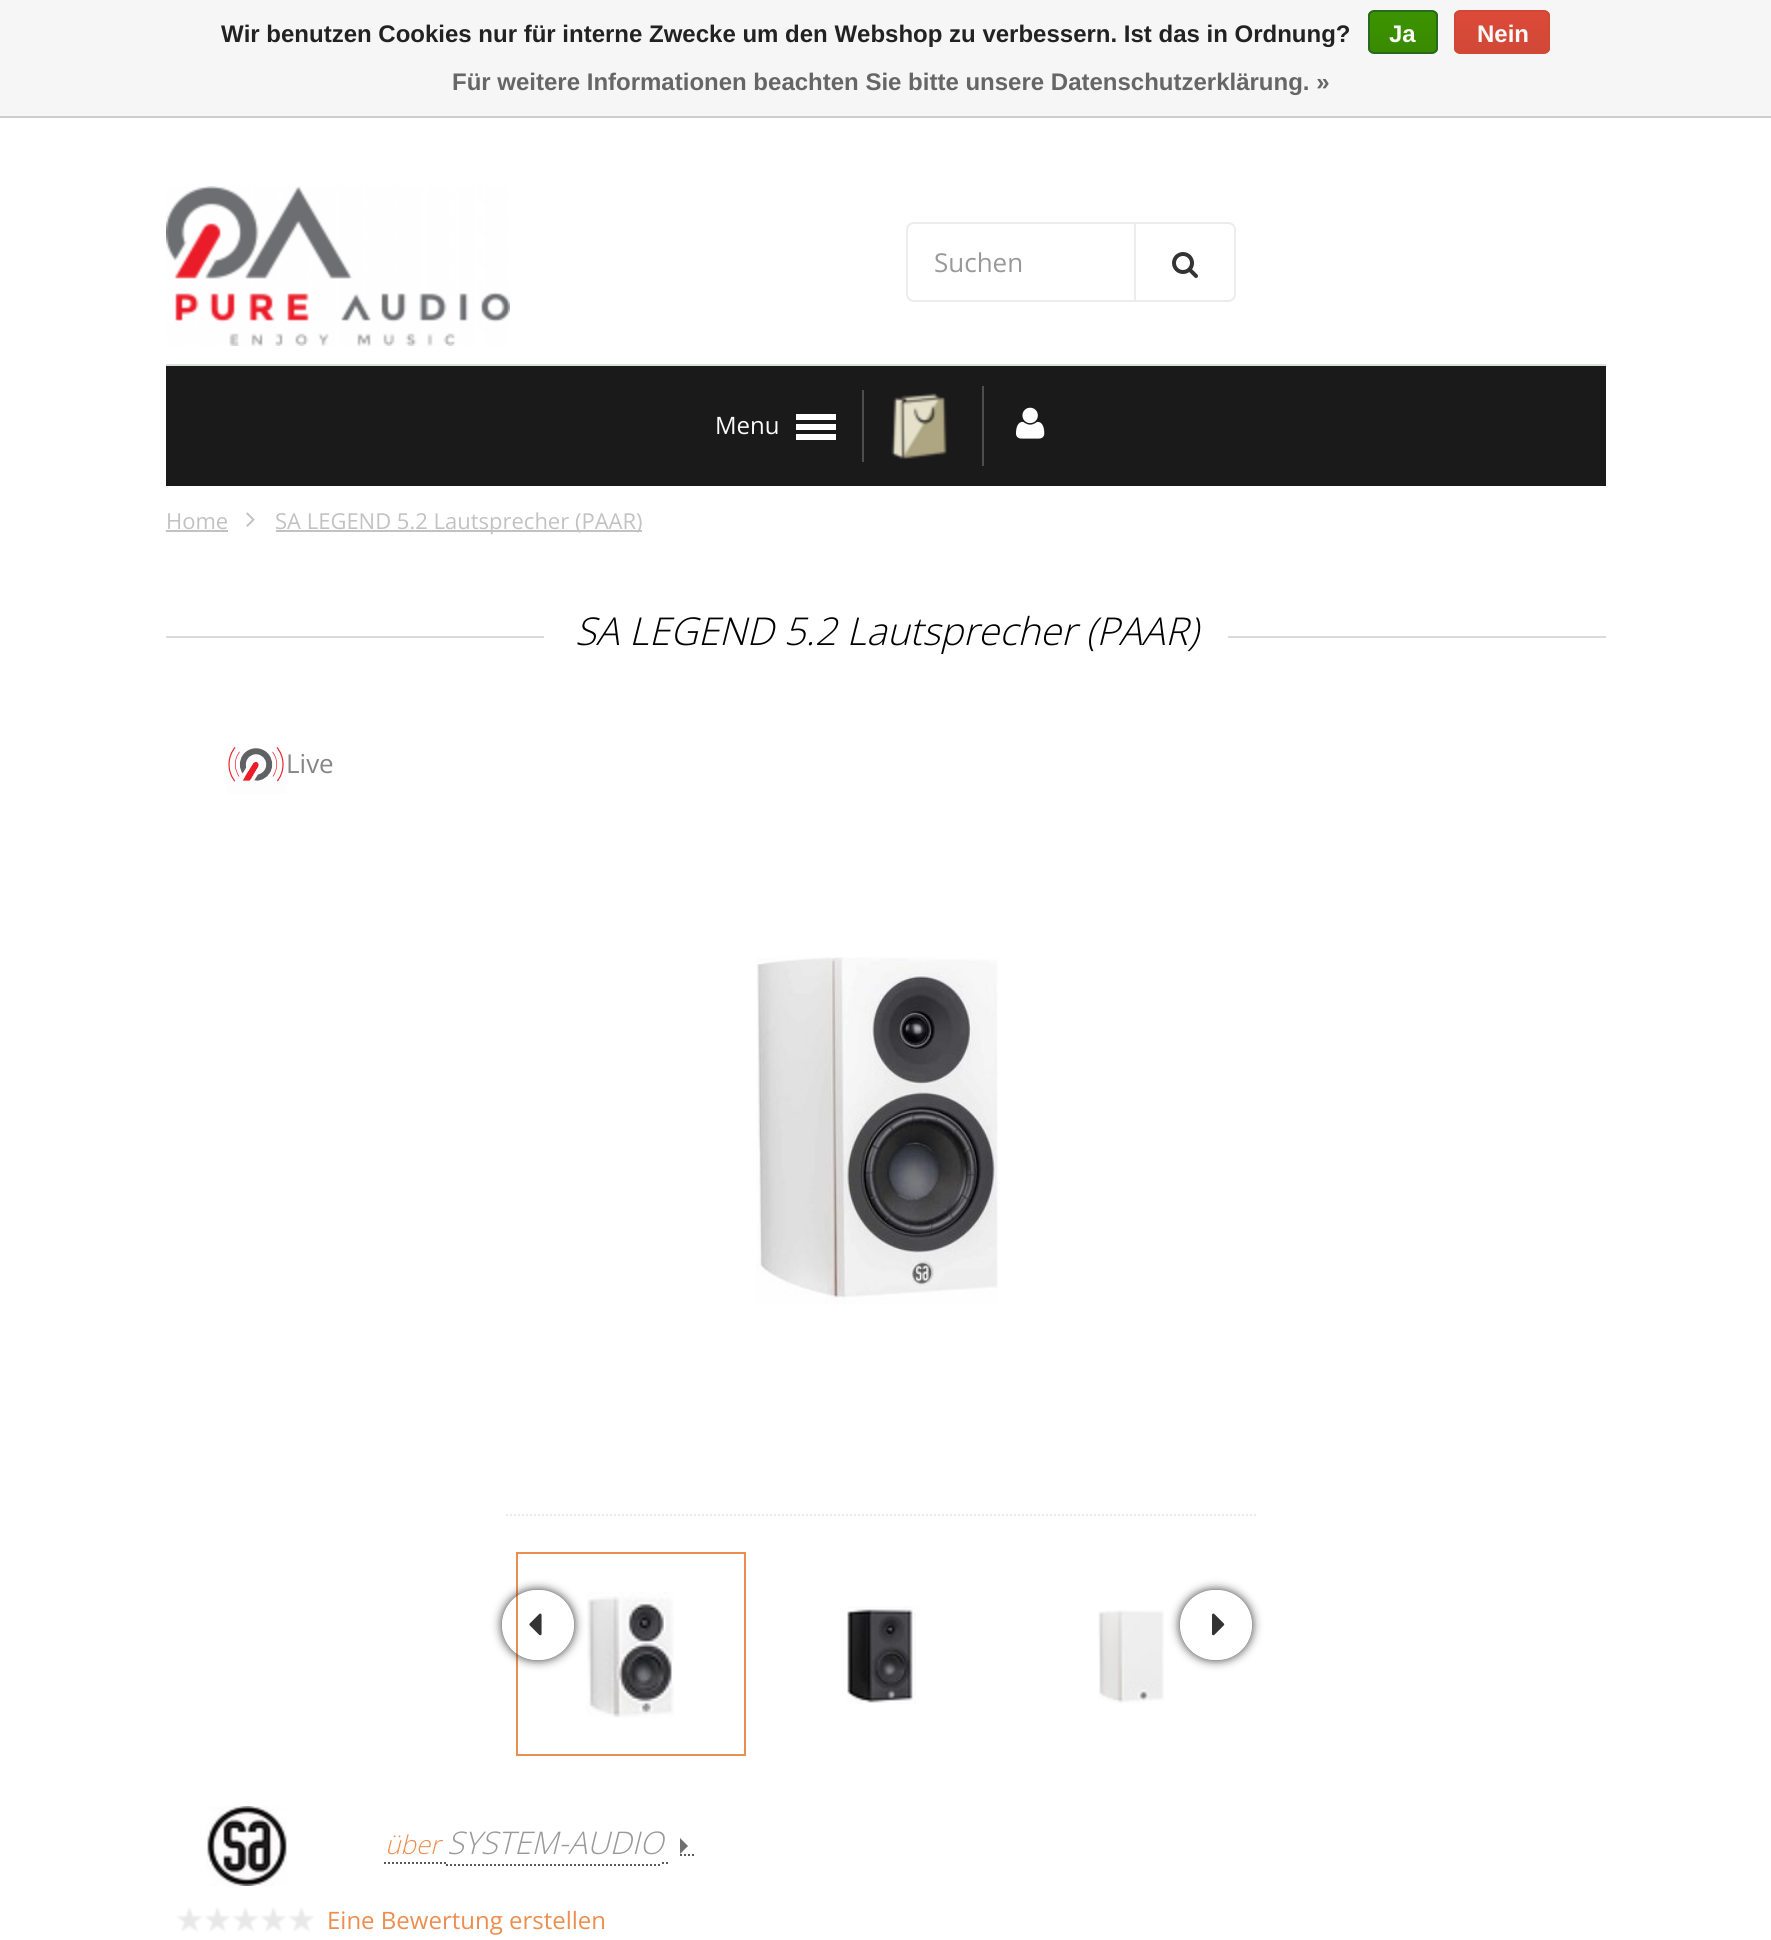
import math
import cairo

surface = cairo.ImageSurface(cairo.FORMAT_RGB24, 1771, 1940)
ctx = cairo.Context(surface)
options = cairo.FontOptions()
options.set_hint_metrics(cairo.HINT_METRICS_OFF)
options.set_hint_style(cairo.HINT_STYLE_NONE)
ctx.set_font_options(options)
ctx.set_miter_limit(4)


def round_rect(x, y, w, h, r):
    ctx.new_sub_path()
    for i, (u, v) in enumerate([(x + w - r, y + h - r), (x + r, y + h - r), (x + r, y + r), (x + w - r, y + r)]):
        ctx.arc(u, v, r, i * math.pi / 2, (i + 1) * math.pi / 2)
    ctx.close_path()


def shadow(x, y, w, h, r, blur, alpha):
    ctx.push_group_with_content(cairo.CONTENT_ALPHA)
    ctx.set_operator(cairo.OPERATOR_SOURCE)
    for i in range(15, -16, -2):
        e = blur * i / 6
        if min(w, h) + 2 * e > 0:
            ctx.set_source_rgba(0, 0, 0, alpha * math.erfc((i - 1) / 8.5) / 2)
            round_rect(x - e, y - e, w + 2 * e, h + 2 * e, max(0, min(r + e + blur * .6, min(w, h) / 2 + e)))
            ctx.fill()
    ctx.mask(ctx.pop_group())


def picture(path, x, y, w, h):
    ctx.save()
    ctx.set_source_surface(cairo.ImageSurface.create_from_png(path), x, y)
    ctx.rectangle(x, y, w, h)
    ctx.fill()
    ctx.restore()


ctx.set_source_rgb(1, 1, 1)
ctx.paint()
ctx.set_source_rgb(0.961, 0.961, 0.961)
ctx.rectangle(0, 0, 1771, 116)
ctx.fill()
ctx.set_source_rgb(0.8, 0.8, 0.8)
ctx.rectangle(0, 116, 1771, 2)
ctx.fill()
ctx.select_font_face("Liberation Sans", cairo.FONT_SLANT_NORMAL, cairo.FONT_WEIGHT_BOLD)
ctx.set_font_size(24)
ctx.set_source_rgb(0.133, 0.133, 0.133)
ctx.move_to(221, 42)
ctx.show_text("Wir benutzen Cookies nur für interne Zwecke um den Webshop zu verbessern. Ist das in Ordnung?")
ctx.save()
round_rect(1368, 10, 70, 44, 6)
ctx.clip()
gradient = cairo.LinearGradient(1403, 12, 1403, 52)
gradient.add_color_stop_rgba(0, 0.235, 0.576, 0, 1)
gradient.add_color_stop_rgba(1, 0.224, 0.541, 0, 1)
ctx.set_source(gradient)
ctx.rectangle(1368, 12, 70, 40)
ctx.fill()
ctx.restore()
round_rect(1369, 11, 68, 42, 5)
ctx.set_source_rgb(0.161, 0.412, 0.114)
ctx.stroke()
ctx.set_source_rgb(0.98, 0.98, 0.98)
ctx.move_to(1389, 42)
ctx.show_text("Ja")
ctx.save()
round_rect(1454, 10, 96, 44, 6)
ctx.clip()
gradient = cairo.LinearGradient(1502, 12, 1502, 52)
gradient.add_color_stop_rgba(0, 0.863, 0.29, 0.22, 1)
gradient.add_color_stop_rgba(1, 0.82, 0.282, 0.212, 1)
ctx.set_source(gradient)
ctx.rectangle(1454, 12, 96, 40)
ctx.fill()
ctx.restore()
round_rect(1455, 11, 94, 42, 5)
ctx.set_source_rgb(0.82, 0.282, 0.212)
ctx.stroke()
ctx.set_source_rgb(0.98, 0.98, 0.98)
ctx.move_to(1477, 42)
ctx.show_text("Nein")
ctx.set_source_rgb(0.4, 0.4, 0.4)
ctx.move_to(452, 90)
ctx.show_text("Für weitere Informationen beachten Sie bitte unsere Datenschutzerklärung. »")
picture("img1.png", 166, 186, 344, 160)
ctx.new_path()
ctx.move_to(914, 223)
ctx.line_to(1135, 223)
ctx.line_to(1135, 301)
ctx.line_to(914, 301)
ctx.curve_to(910, 301, 907, 298, 907, 294)
ctx.line_to(907, 230)
ctx.curve_to(907, 226, 910, 223, 914, 223)
ctx.close_path()
ctx.set_source_rgb(0.922, 0.922, 0.922)
ctx.stroke()
ctx.select_font_face("Open Sans")
ctx.set_font_size(26)
ctx.set_source_rgb(0.6, 0.6, 0.6)
ctx.move_to(934, 272)
ctx.show_text("Suchen")
ctx.set_source_rgb(1, 1, 1)
ctx.new_path()
ctx.move_to(1135, 223)
ctx.line_to(1228, 223)
ctx.curve_to(1232, 223, 1235, 226, 1235, 230)
ctx.line_to(1235, 294)
ctx.curve_to(1235, 298, 1232, 301, 1228, 301)
ctx.line_to(1135, 301)
ctx.close_path()
ctx.fill_preserve()
ctx.set_source_rgb(0.922, 0.922, 0.922)
ctx.stroke()
picture("img2.png", 1172, 252, 26, 26)
ctx.set_source_rgb(0.855, 0.89, 0.843)
ctx.rectangle(166, 364, 1440, 2)
ctx.fill()
ctx.set_source_rgb(0.102, 0.102, 0.102)
ctx.rectangle(166, 366, 1440, 120)
ctx.fill()
ctx.set_font_size(24)
ctx.set_source_rgb(0.98, 0.98, 0.98)
ctx.move_to(715, 434)
ctx.show_text("Menu")
ctx.set_source_rgb(1, 1, 1)
ctx.rectangle(796, 414, 40, 6)
ctx.fill()
ctx.rectangle(796, 424, 40, 6)
ctx.fill()
ctx.rectangle(796, 434, 40, 6)
ctx.fill()
ctx.set_source_rgb(0.302, 0.302, 0.302)
ctx.rectangle(862, 390, 2, 72)
ctx.fill()
picture("img3.png", 891, 393, 56, 67)
ctx.rectangle(982, 386, 2, 80)
ctx.fill()
picture("img4.png", 1016, 407, 29, 32)
ctx.set_font_size(22)
ctx.set_source_rgb(0.761, 0.761, 0.761)
ctx.move_to(166, 529)
ctx.show_text("Home")
ctx.rectangle(166, 530, 62, 2)
ctx.fill()
picture("img5.png", 246, 512, 9, 15)
ctx.rectangle(276, 530, 366, 2)
ctx.fill()
ctx.move_to(275, 529)
ctx.show_text("SA LEGEND 5.2 Lautsprecher (PAAR)")
ctx.set_source_rgb(0.859, 0.859, 0.859)
ctx.rectangle(166, 636, 1440, 2)
ctx.fill()
ctx.set_source_rgb(1, 1, 1)
ctx.rectangle(544, 636, 684, 2)
ctx.fill()
ctx.select_font_face("Open Sans Light", cairo.FONT_SLANT_ITALIC)
ctx.set_font_size(38.4)
ctx.set_source_rgb(0, 0, 0)
ctx.move_to(575, 645)
ctx.show_text("SA LEGEND 5.2 Lautsprecher (PAAR)")
picture("img6.png", 226, 734, 60, 60)
ctx.select_font_face("Open Sans")
ctx.set_font_size(26)
ctx.set_source_rgb(0.525, 0.525, 0.525)
ctx.move_to(286, 773)
ctx.show_text("Live")
picture("img7.png", 756, 957, 242, 347)
ctx.new_path()
ctx.move_to(506, 1515)
ctx.line_to(1256, 1515)
ctx.set_source_rgb(0.922, 0.922, 0.922)
ctx.set_dash([2, 2])
ctx.stroke()
ctx.rectangle(517, 1553, 228, 202)
ctx.set_source_rgb(0.922, 0.557, 0.314)
ctx.set_dash([])
ctx.stroke()
picture("img8.png", 586, 1592, 88, 126)
picture("img9.png", 847, 1606, 69, 98)
picture("img10.png", 1098, 1610, 66, 94)
ctx.save()
ctx.set_fill_rule(cairo.FILL_RULE_EVEN_ODD)
ctx.new_path()
ctx.move_to(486, 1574)
ctx.line_to(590, 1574)
ctx.line_to(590, 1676)
ctx.line_to(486, 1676)
ctx.close_path()
ctx.move_to(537, 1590)
ctx.line_to(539, 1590)
ctx.curve_to(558.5, 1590, 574, 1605.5, 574, 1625)
ctx.curve_to(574, 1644.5, 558.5, 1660, 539, 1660)
ctx.line_to(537, 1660)
ctx.curve_to(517.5, 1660, 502, 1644.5, 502, 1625)
ctx.curve_to(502, 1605.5, 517.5, 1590, 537, 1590)
ctx.close_path()
ctx.clip()
ctx.set_source_rgb(0.2, 0.2, 0.2)
shadow(502, 1590, 72, 70, 35, 5, 1)
ctx.restore()
picture("img11.png", 529, 1613, 13, 23)
ctx.save()
ctx.set_fill_rule(cairo.FILL_RULE_EVEN_ODD)
ctx.new_path()
ctx.move_to(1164, 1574)
ctx.line_to(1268, 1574)
ctx.line_to(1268, 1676)
ctx.line_to(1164, 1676)
ctx.close_path()
ctx.move_to(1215, 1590)
ctx.line_to(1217, 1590)
ctx.curve_to(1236.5, 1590, 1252, 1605.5, 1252, 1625)
ctx.curve_to(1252, 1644.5, 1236.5, 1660, 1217, 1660)
ctx.line_to(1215, 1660)
ctx.curve_to(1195.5, 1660, 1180, 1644.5, 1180, 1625)
ctx.curve_to(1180, 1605.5, 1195.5, 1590, 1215, 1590)
ctx.close_path()
ctx.clip()
ctx.set_source_rgb(0.2, 0.2, 0.2)
shadow(1180, 1590, 72, 70, 35, 5, 1)
ctx.restore()
picture("img12.png", 1212, 1613, 13, 23)
picture("img13.png", 206, 1806, 81, 80)
ctx.new_path()
ctx.move_to(384, 1863)
ctx.line_to(446, 1863)
ctx.set_source_rgb(0.357, 0.357, 0.357)
ctx.set_dash([2, 2])
ctx.stroke()
ctx.new_path()
ctx.move_to(446, 1865)
ctx.line_to(662, 1865)
ctx.stroke()
ctx.new_path()
ctx.move_to(662, 1863)
ctx.line_to(664, 1863)
ctx.move_to(666, 1863)
ctx.line_to(668, 1863)
ctx.set_dash([])
ctx.stroke()
ctx.new_path()
ctx.move_to(680, 1855)
ctx.line_to(696, 1855)
ctx.set_dash([2, 2])
ctx.stroke()
ctx.select_font_face("Open Sans Light", cairo.FONT_SLANT_ITALIC)
ctx.set_source_rgb(0.922, 0.557, 0.314)
ctx.move_to(385, 1854)
ctx.show_text("über")
ctx.set_font_size(31.25)
ctx.set_source_rgb(0.6, 0.6, 0.6)
ctx.move_to(447, 1854)
ctx.show_text("SYSTEM-AUDIO")
ctx.set_source_rgb(0.439, 0.439, 0.439)
ctx.new_path()
ctx.move_to(680, 1854)
ctx.line_to(680, 1838)
ctx.line_to(688, 1846)
ctx.close_path()
ctx.fill()
picture("img14.png", 176, 1908, 138, 24)
ctx.select_font_face("Open Sans")
ctx.set_font_size(24)
ctx.set_source_rgb(0.922, 0.557, 0.314)
ctx.move_to(327, 1929)
ctx.show_text("Eine Bewertung erstellen")
surface.write_to_png("page.png")
